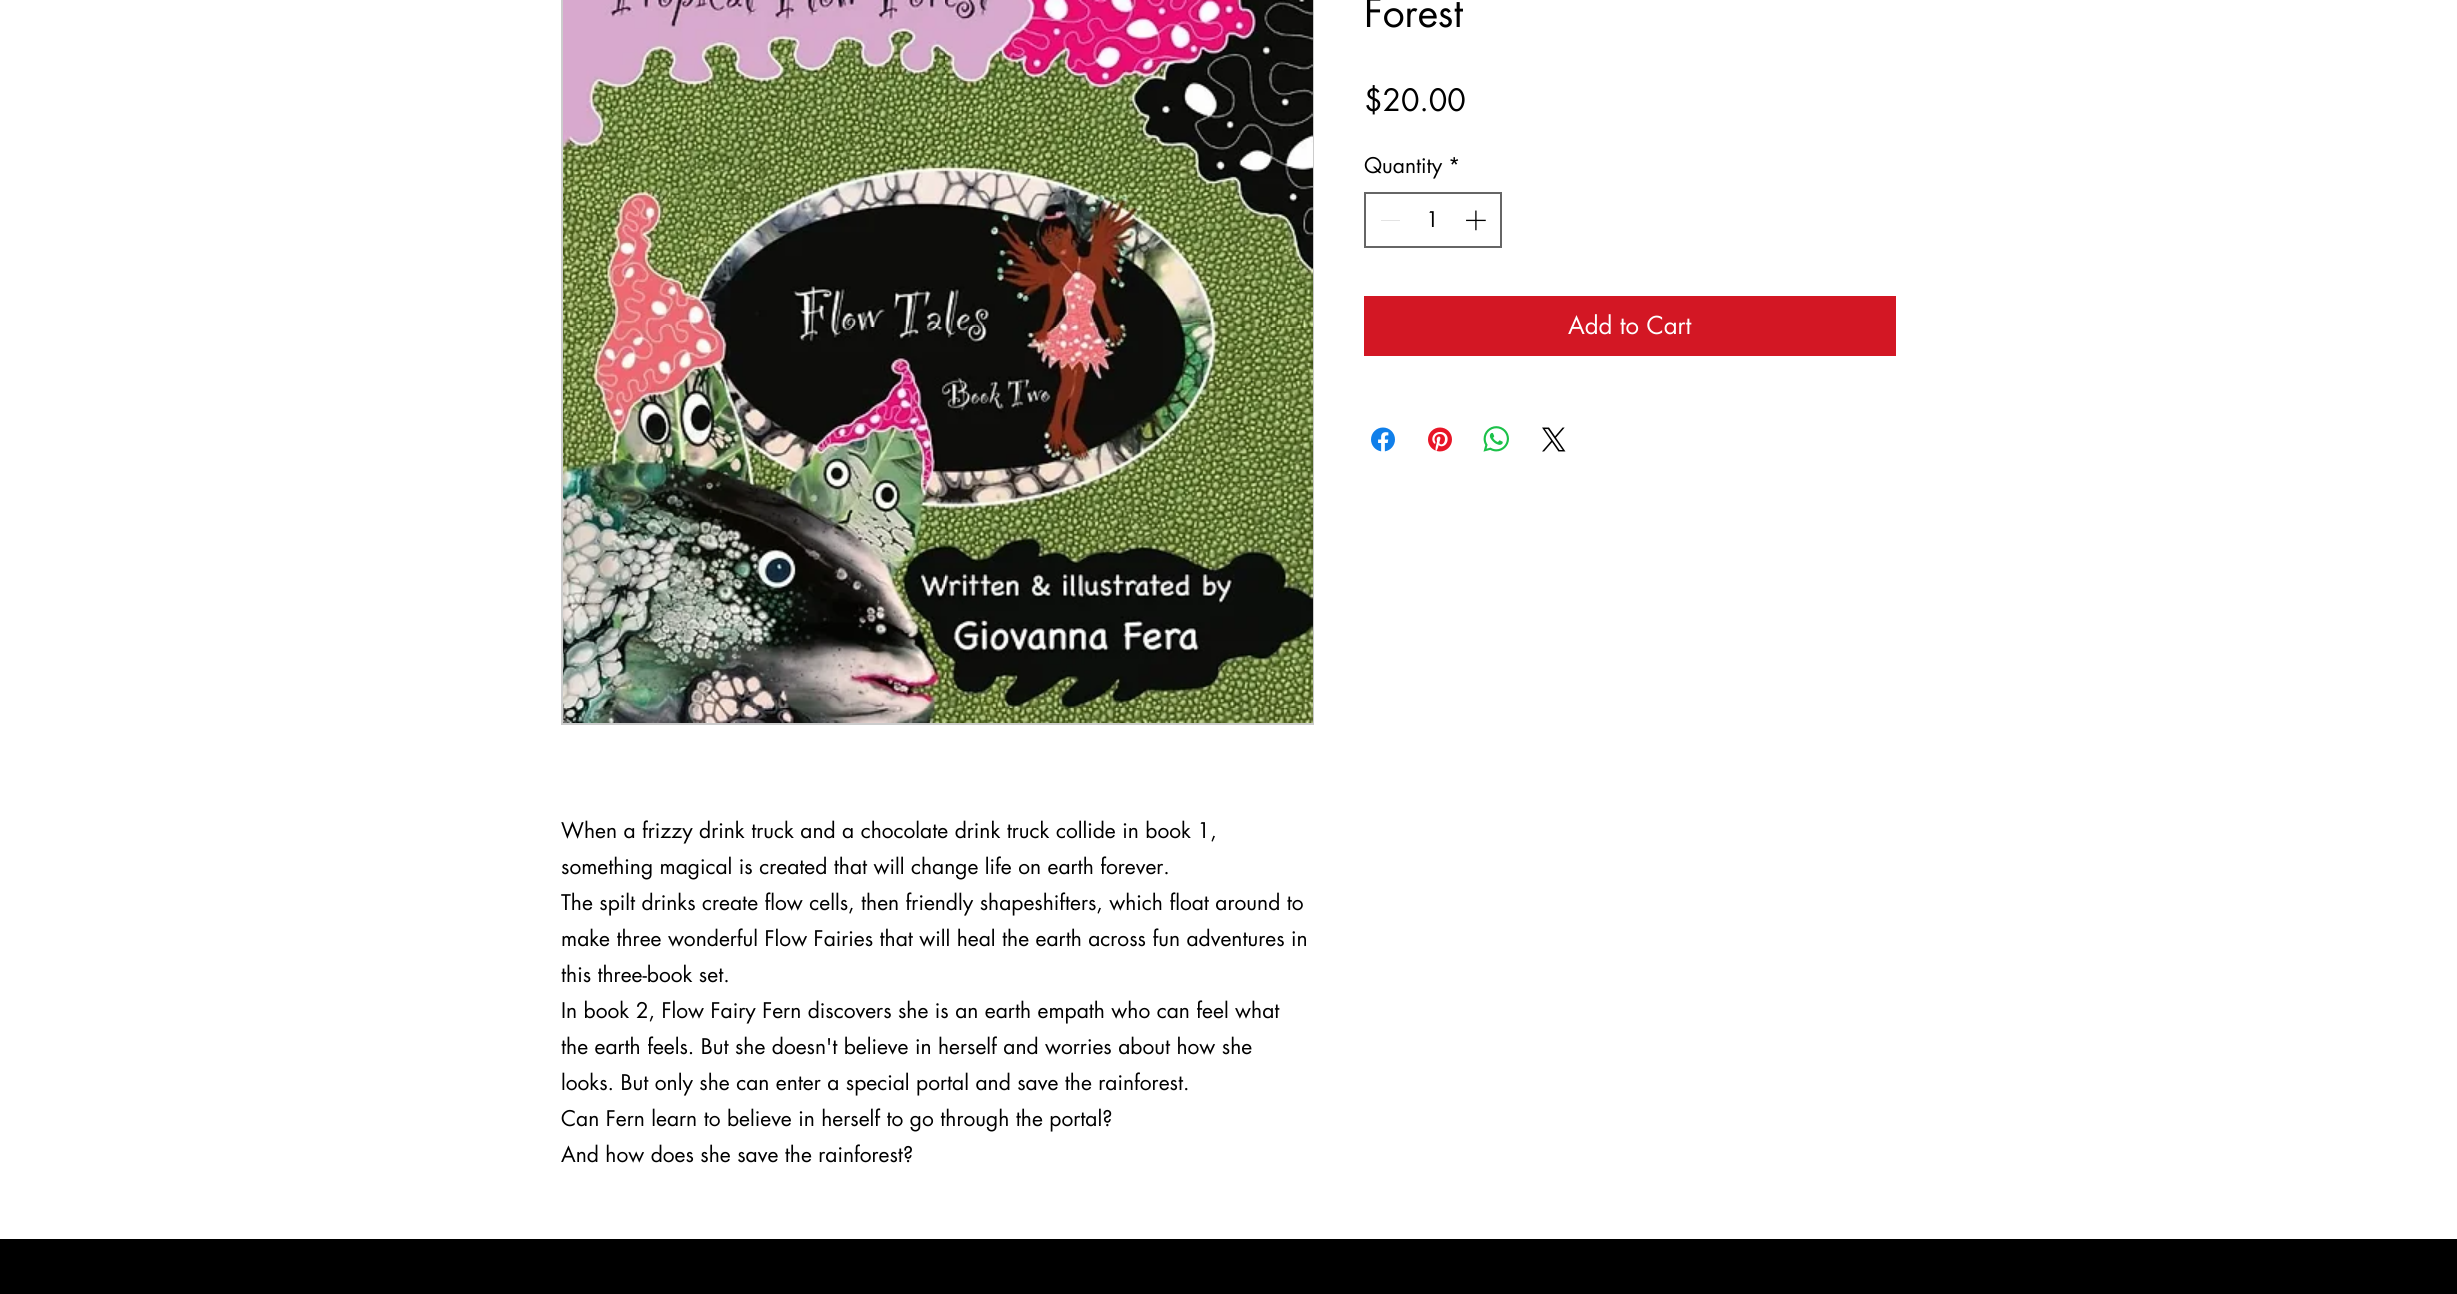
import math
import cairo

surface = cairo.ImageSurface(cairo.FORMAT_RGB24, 2457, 1294)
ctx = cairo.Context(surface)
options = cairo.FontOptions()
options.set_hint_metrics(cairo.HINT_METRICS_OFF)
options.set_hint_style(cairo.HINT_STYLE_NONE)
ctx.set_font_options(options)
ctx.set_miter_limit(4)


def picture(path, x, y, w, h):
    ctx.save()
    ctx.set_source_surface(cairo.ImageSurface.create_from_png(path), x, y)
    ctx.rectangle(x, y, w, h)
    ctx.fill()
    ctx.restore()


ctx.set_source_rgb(1, 1, 1)
ctx.paint()
ctx.select_font_face("futura")
ctx.set_font_size(39)
ctx.set_source_rgb(0, 0, 0)
ctx.move_to(1364, 27)
ctx.show_text("Forest")
ctx.set_font_size(30)
ctx.move_to(1364, 111)
ctx.show_text("$20.00")
ctx.set_font_size(21)
ctx.move_to(1364, 173)
ctx.show_text("Quantity")
ctx.move_to(1448, 173)
ctx.show_text("*")
ctx.rectangle(1365, 193, 136, 54)
ctx.set_source_rgb(0.4, 0.4, 0.4)
ctx.stroke()
ctx.set_source_rgb(0.89, 0.89, 0.89)
ctx.rectangle(1381, 220, 19, 1)
ctx.fill()
ctx.set_source_rgb(0, 0, 0)
ctx.move_to(1426, 227)
ctx.show_text("1")
picture("img1.png", 1466, 210, 20, 21)
ctx.set_source_rgb(0.827, 0.09, 0.141)
ctx.rectangle(1364, 296, 532, 60)
ctx.fill()
ctx.set_font_size(24)
ctx.set_source_rgb(1, 1, 1)
ctx.move_to(1568, 334)
ctx.show_text("Add to Cart")
picture("img2.png", 1371, 427, 24, 25)
picture("img3.png", 1428, 427, 24, 25)
picture("img4.png", 1483, 426, 26, 26)
picture("img5.png", 1542, 427, 24, 25)
ctx.rectangle(562, -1, 751, 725)
ctx.set_source_rgb(0.8, 0.8, 0.8)
ctx.stroke()
picture("img6.png", 563, 0, 750, 723)
ctx.set_font_size(21)
ctx.set_source_rgb(0, 0, 0)
ctx.move_to(561, 838)
ctx.show_text("When a frizzy drink truck and a chocolate drink truck collide in book 1,")
ctx.move_to(561, 874)
ctx.show_text("something magical is created that will change life on earth forever.")
ctx.move_to(561, 910)
ctx.show_text("The spilt drinks create flow cells, then friendly shapeshifters, which float around to")
ctx.move_to(561, 946)
ctx.show_text("make three wonderful Flow Fairies that will heal the earth across fun adventures in")
ctx.move_to(561, 982)
ctx.show_text("this three-book set.")
ctx.move_to(561, 1018)
ctx.show_text("In book 2, Flow Fairy Fern discovers she is an earth empath who can feel what")
ctx.move_to(561, 1054)
ctx.show_text("the earth feels. But she doesn't believe in herself and worries about how she")
ctx.move_to(561, 1090)
ctx.show_text("looks. But only she can enter a special portal and save the rainforest.")
ctx.move_to(561, 1126)
ctx.show_text("Can Fern learn to believe in herself to go through the portal?")
ctx.move_to(561, 1162)
ctx.show_text("And how does she save the rainforest?")
ctx.rectangle(0, 1239, 2457, 55)
ctx.fill()
surface.write_to_png("page.png")
